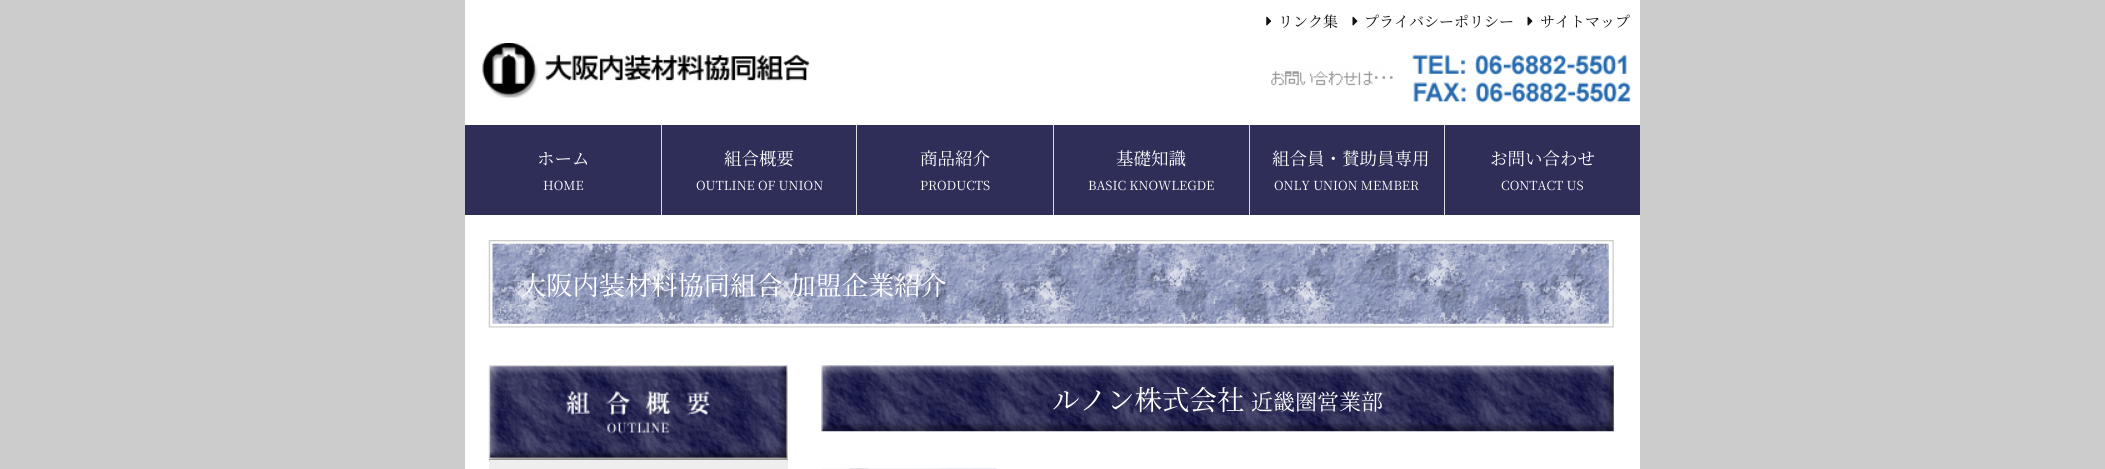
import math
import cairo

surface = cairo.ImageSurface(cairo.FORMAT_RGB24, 2105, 469)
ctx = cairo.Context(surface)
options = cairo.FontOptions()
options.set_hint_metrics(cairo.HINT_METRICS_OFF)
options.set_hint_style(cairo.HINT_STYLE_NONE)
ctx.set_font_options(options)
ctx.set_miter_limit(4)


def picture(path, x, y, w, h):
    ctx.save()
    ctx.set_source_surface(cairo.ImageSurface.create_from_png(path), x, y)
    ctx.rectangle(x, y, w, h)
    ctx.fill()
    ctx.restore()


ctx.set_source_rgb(0.8, 0.8, 0.8)
ctx.paint()
ctx.set_source_rgb(1, 1, 1)
ctx.rectangle(465, 0, 1175, 125)
ctx.fill()
picture("img1.png", 1271, 54, 360, 49)
picture("img2.png", 482, 43, 328, 55)
picture("img3.png", 1266, 16, 6, 10)
ctx.select_font_face("Noto Serif JP ExtraLight")
ctx.set_font_size(15)
ctx.set_source_rgb(0.067, 0.067, 0.067)
ctx.move_to(1278, 27)
ctx.show_text("リンク集")
picture("img4.png", 1352, 16, 6, 10)
ctx.move_to(1364, 27)
ctx.show_text("プライバシーポリシー")
picture("img4.png", 1527, 16, 6, 10)
ctx.move_to(1540, 27)
ctx.show_text("サイトマップ")
ctx.set_source_rgb(0.184, 0.18, 0.345)
ctx.rectangle(465, 125, 196, 90)
ctx.fill()
ctx.set_font_size(17.5)
ctx.set_source_rgb(1, 1, 1)
ctx.move_to(537, 165)
ctx.show_text("ホーム")
ctx.set_font_size(12.5)
ctx.move_to(543, 190)
ctx.show_text("HOME")
ctx.set_source_rgb(0.184, 0.18, 0.345)
ctx.rectangle(662, 125, 194, 90)
ctx.fill()
ctx.set_source_rgb(0.863, 0.867, 0.867)
ctx.rectangle(661, 125, 1, 90)
ctx.fill()
ctx.set_font_size(17.5)
ctx.set_source_rgb(1, 1, 1)
ctx.move_to(724, 165)
ctx.show_text("組合概要")
ctx.set_font_size(12.5)
ctx.move_to(696, 190)
ctx.show_text("OUTLINE OF UNION")
ctx.set_source_rgb(0.184, 0.18, 0.345)
ctx.rectangle(857, 125, 196, 90)
ctx.fill()
ctx.set_source_rgb(0.863, 0.867, 0.867)
ctx.rectangle(856, 125, 1, 90)
ctx.fill()
ctx.set_font_size(17.5)
ctx.set_source_rgb(1, 1, 1)
ctx.move_to(920, 165)
ctx.show_text("商品紹介")
ctx.set_font_size(12.5)
ctx.move_to(920, 190)
ctx.show_text("PRODUCTS")
ctx.set_source_rgb(0.184, 0.18, 0.345)
ctx.rectangle(1054, 125, 195, 90)
ctx.fill()
ctx.set_source_rgb(0.863, 0.867, 0.867)
ctx.rectangle(1053, 125, 1, 90)
ctx.fill()
ctx.set_font_size(17.5)
ctx.set_source_rgb(1, 1, 1)
ctx.move_to(1116, 165)
ctx.show_text("基礎知識")
ctx.set_font_size(12.5)
ctx.move_to(1088, 190)
ctx.show_text("BASIC KNOWLEGDE")
ctx.set_source_rgb(0.184, 0.18, 0.345)
ctx.rectangle(1250, 125, 194, 90)
ctx.fill()
ctx.set_source_rgb(0.863, 0.867, 0.867)
ctx.rectangle(1249, 125, 1, 90)
ctx.fill()
ctx.set_font_size(17.5)
ctx.set_source_rgb(1, 1, 1)
ctx.move_to(1272, 165)
ctx.show_text("組合員・賛助員専用")
ctx.set_font_size(12.5)
ctx.move_to(1274, 190)
ctx.show_text("ONLY UNION MEMBER")
ctx.set_source_rgb(0.184, 0.18, 0.345)
ctx.rectangle(1445, 125, 195, 90)
ctx.fill()
ctx.set_source_rgb(0.863, 0.867, 0.867)
ctx.rectangle(1444, 125, 1, 90)
ctx.fill()
ctx.set_font_size(17.5)
ctx.set_source_rgb(1, 1, 1)
ctx.move_to(1490, 165)
ctx.show_text("お問い合わせ")
ctx.set_font_size(12.5)
ctx.move_to(1501, 190)
ctx.show_text("CONTACT US")
ctx.rectangle(465, 215, 1175, 254)
ctx.fill()
picture("img5.png", 488, 240, 1126, 88)
ctx.set_font_size(26.25)
ctx.move_to(520, 295)
ctx.show_text("大阪内装材料協同組合 加盟企業紹介")
picture("img6.png", 488, 365, 300, 94)
ctx.set_source_rgb(0.933, 0.933, 0.933)
ctx.rectangle(489, 460, 299, 9)
ctx.fill()
ctx.set_source_rgb(0.6, 0.6, 0.6)
ctx.rectangle(489, 459, 299, 1)
ctx.fill()
picture("img7.png", 821, 365, 793, 67)
ctx.set_font_size(27.5)
ctx.set_source_rgb(1, 1, 1)
ctx.move_to(1052, 410)
ctx.show_text("ルノン株式会社")
ctx.set_font_size(22)
ctx.move_to(1251, 410)
ctx.show_text("近畿圏営業部")
picture("img8.png", 822, 468, 175, 1)
surface.write_to_png("page.png")
